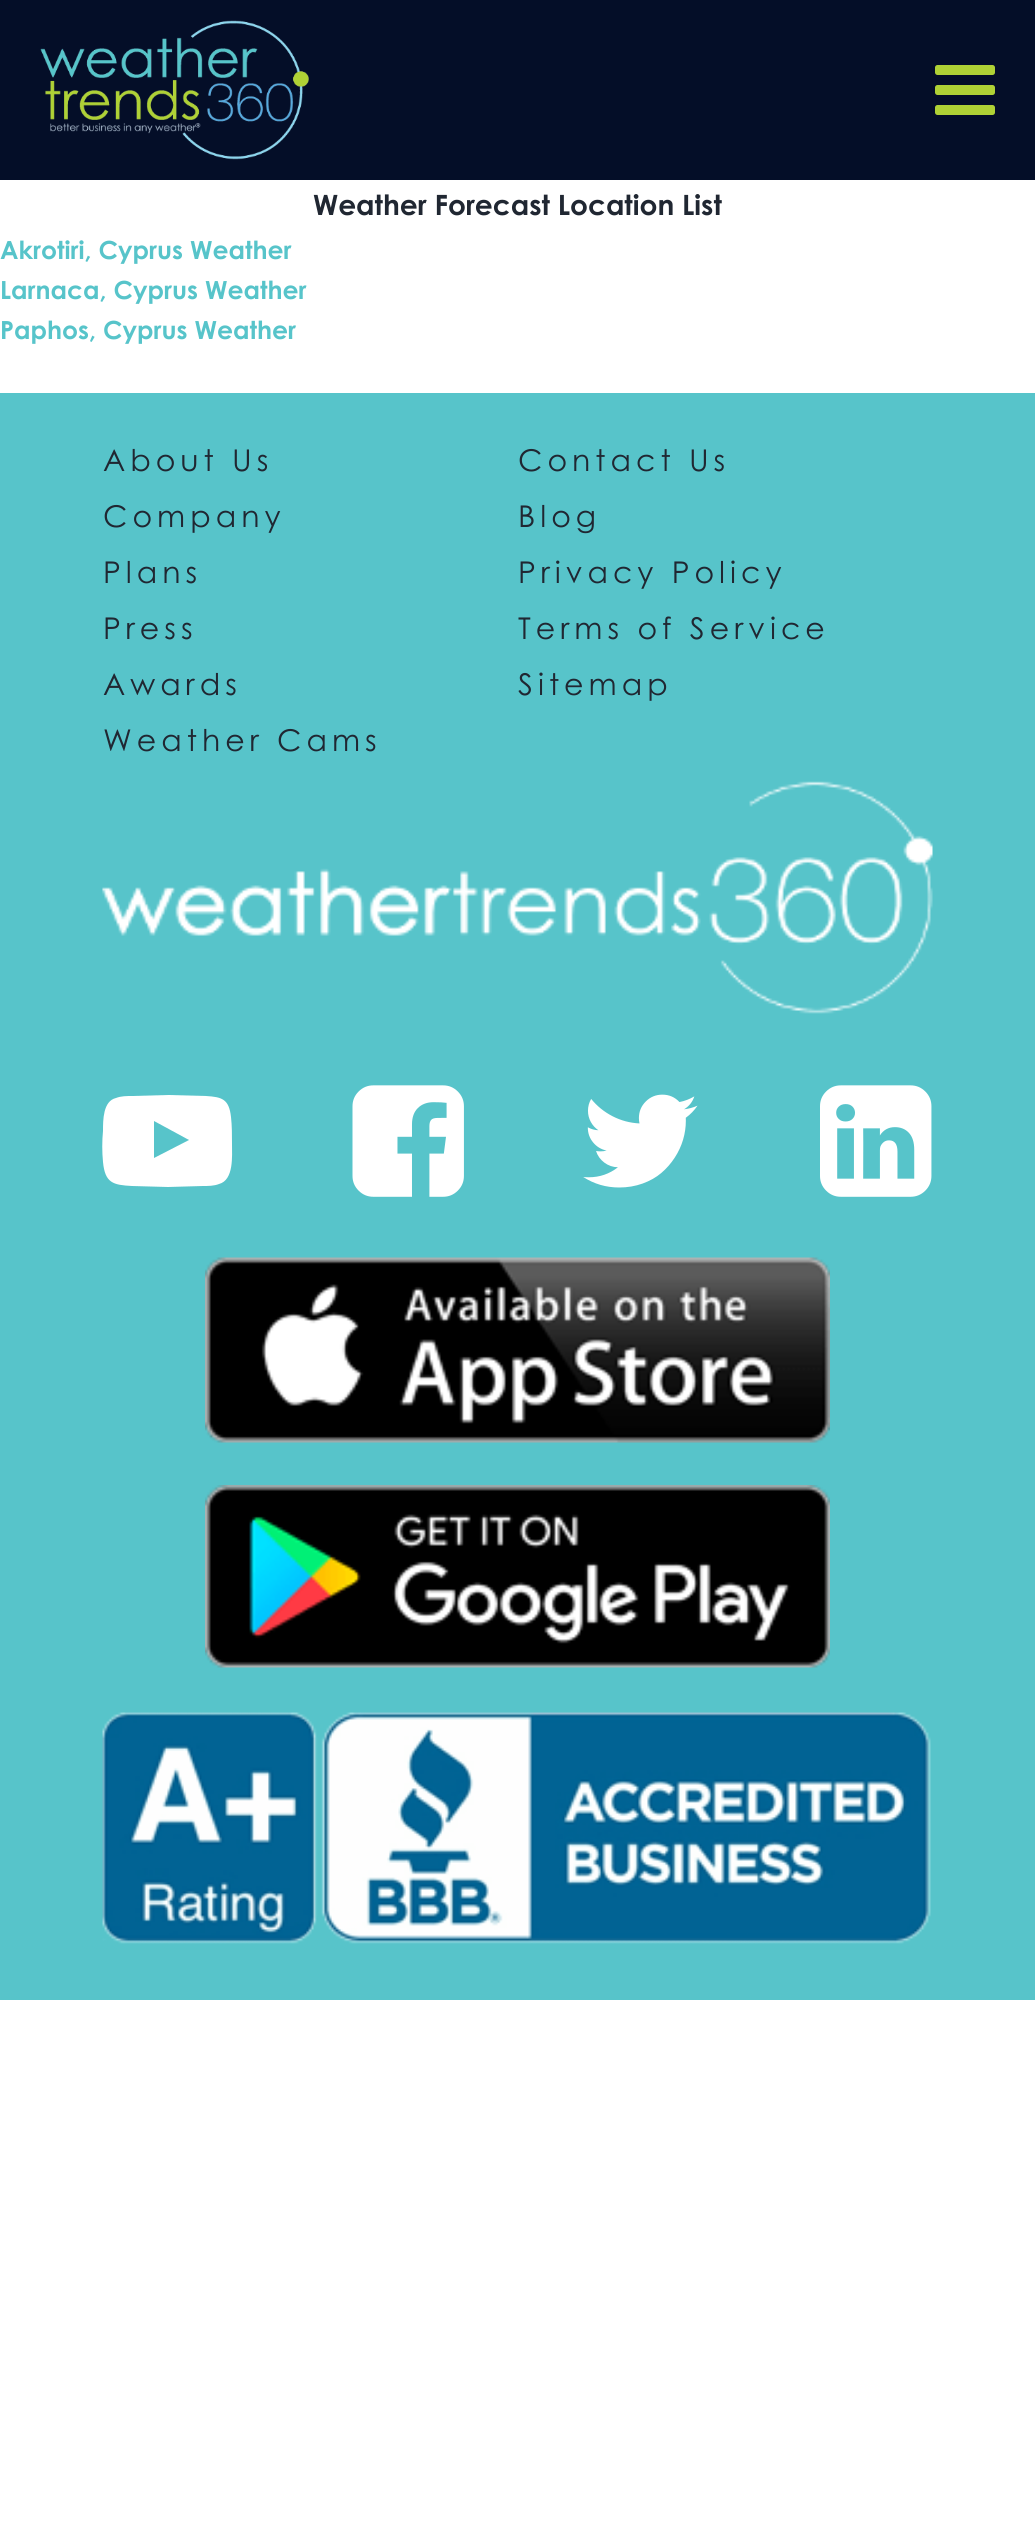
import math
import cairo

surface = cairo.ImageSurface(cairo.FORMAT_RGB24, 1035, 2525)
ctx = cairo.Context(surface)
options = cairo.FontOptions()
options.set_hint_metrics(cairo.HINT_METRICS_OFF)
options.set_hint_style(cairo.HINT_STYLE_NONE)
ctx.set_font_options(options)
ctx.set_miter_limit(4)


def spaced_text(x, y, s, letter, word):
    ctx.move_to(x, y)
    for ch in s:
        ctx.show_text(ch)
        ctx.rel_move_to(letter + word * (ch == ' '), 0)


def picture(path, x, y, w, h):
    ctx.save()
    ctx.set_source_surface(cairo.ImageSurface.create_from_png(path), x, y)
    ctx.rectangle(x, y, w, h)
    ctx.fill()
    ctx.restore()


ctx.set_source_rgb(1, 1, 1)
ctx.paint()
ctx.set_source_rgb(0.016, 0.055, 0.157)
ctx.rectangle(0, 0, 1035, 180)
ctx.fill()
picture("img1.png", 40, 20, 269, 140)
picture("img2.png", 935, 65, 60, 50)
ctx.select_font_face("Century Gothic", cairo.FONT_SLANT_NORMAL, cairo.FONT_WEIGHT_BOLD)
ctx.set_font_size(28)
ctx.set_source_rgb(0.125, 0.153, 0.196)
ctx.move_to(313, 215)
ctx.show_text("Weather Forecast Location List")
ctx.set_font_size(25)
ctx.set_source_rgb(0.341, 0.769, 0.792)
ctx.move_to(0, 259)
ctx.show_text("Akrotiri, Cyprus Weather")
ctx.move_to(0, 299)
ctx.show_text("Larnaca, Cyprus Weather")
ctx.move_to(0, 339)
ctx.show_text("Paphos, Cyprus Weather")
ctx.rectangle(0, 393, 1035, 1607)
ctx.fill()
ctx.select_font_face("Century Gothic")
ctx.set_font_size(30)
ctx.set_source_rgb(0.125, 0.153, 0.196)
spaced_text(103, 471, "About Us", 5, 0)
spaced_text(103, 527, "Company", 5, 0)
spaced_text(103, 583, "Plans", 5, 0)
spaced_text(103, 639, "Press", 5, 0)
spaced_text(103, 695, "Awards", 5, 0)
spaced_text(103, 751, "Weather Cams", 5, 0)
spaced_text(518, 471, "Contact Us", 5, 0)
spaced_text(518, 527, "Blog", 5, 0)
spaced_text(518, 583, "Privacy Policy", 5, 0)
spaced_text(518, 639, "Terms of Service", 5, 0)
spaced_text(518, 695, "Sitemap", 5, 0)
picture("img3.png", 102, 781, 831, 233)
ctx.set_source_rgb(1, 1, 1)
ctx.new_path()
ctx.move_to(154, 1158)
ctx.line_to(189, 1140)
ctx.line_to(154, 1121)
ctx.close_path()
ctx.move_to(168, 1095)
ctx.line_to(206, 1096)
ctx.curve_to(222, 1097, 229, 1099, 231, 1117)
ctx.curve_to(232, 1126, 232, 1135, 232, 1144)
ctx.curve_to(232, 1156, 234, 1180, 219, 1184)
ctx.curve_to(214, 1186, 208, 1186, 203, 1186)
ctx.line_to(168, 1187)
ctx.line_to(132, 1186)
ctx.curve_to(113, 1185, 105, 1183, 103, 1162)
ctx.curve_to(102, 1152, 102, 1141, 103, 1131)
ctx.curve_to(103, 1120, 103, 1101, 116, 1098)
ctx.curve_to(121, 1096, 127, 1096, 132, 1096)
ctx.close_path()
ctx.fill()
picture("img4.png", 352, 1085, 112, 112)
picture("img5.png", 583, 1094, 115, 94)
picture("img6.png", 820, 1085, 112, 112)
picture("img7.png", 205, 1257, 625, 186)
picture("img8.png", 205, 1485, 625, 183)
picture("img9.png", 102, 1712, 829, 232)
surface.write_to_png("page.png")
